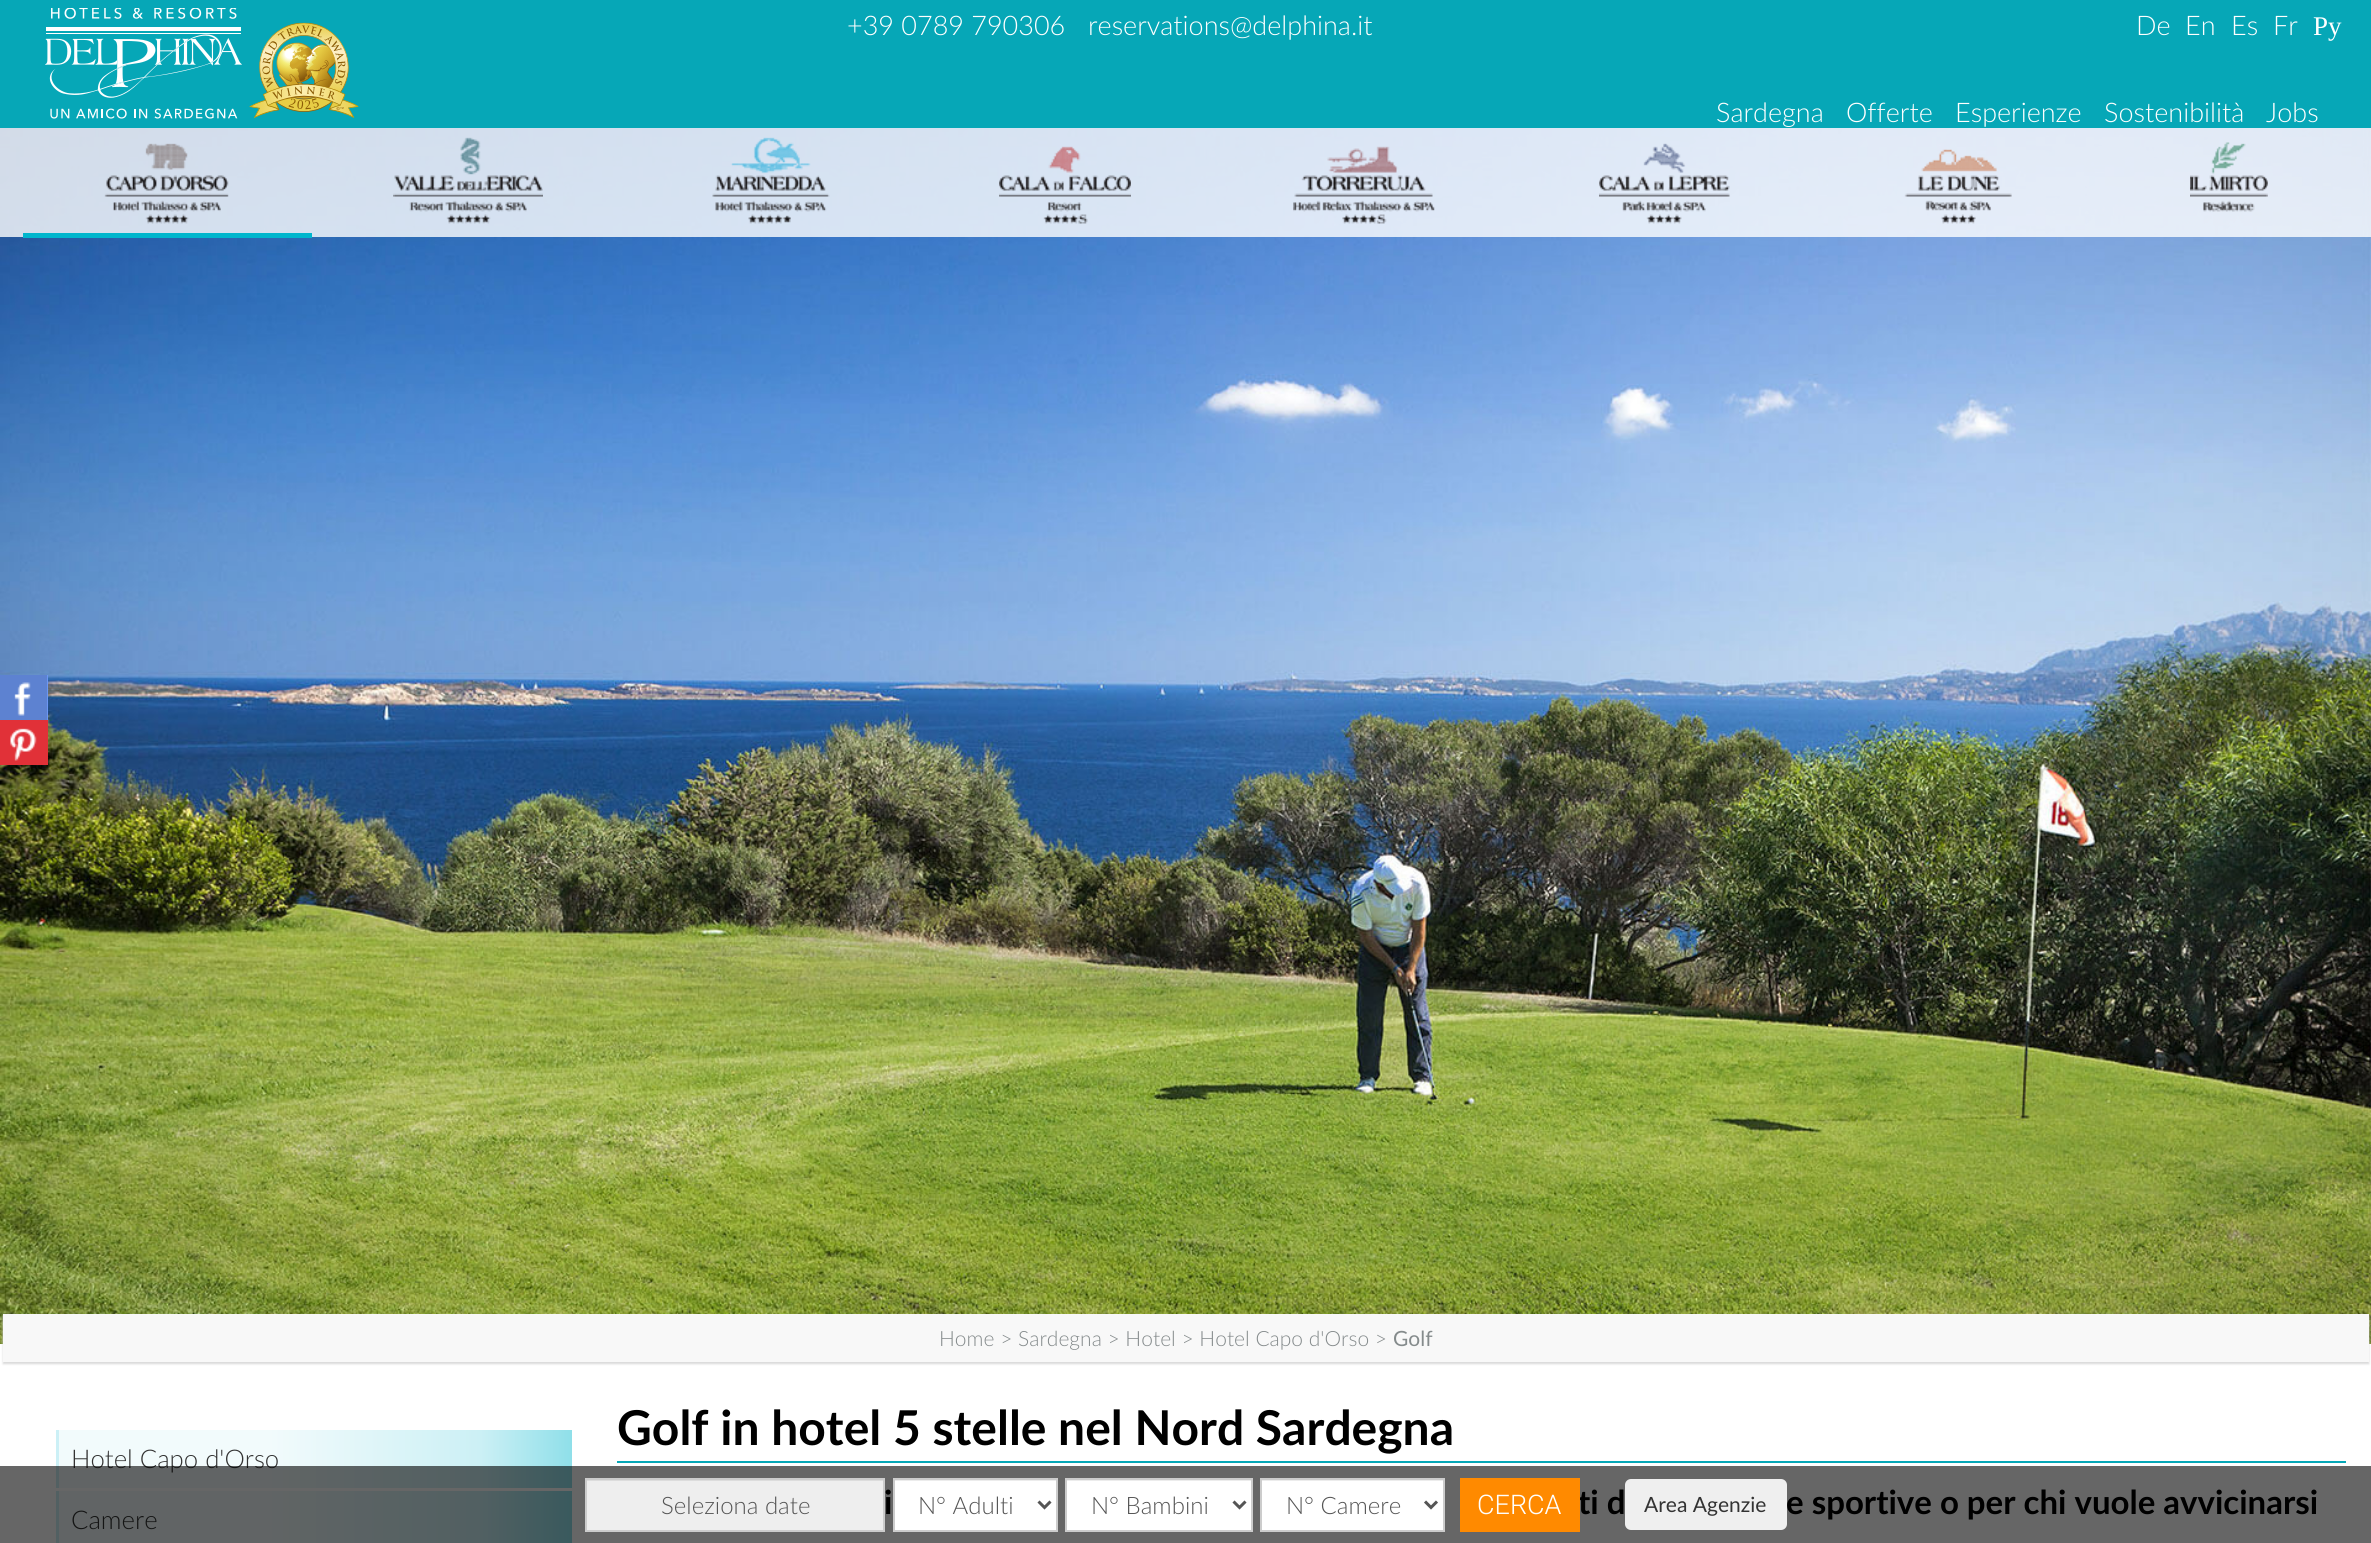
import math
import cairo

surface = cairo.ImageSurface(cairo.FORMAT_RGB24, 2371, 1543)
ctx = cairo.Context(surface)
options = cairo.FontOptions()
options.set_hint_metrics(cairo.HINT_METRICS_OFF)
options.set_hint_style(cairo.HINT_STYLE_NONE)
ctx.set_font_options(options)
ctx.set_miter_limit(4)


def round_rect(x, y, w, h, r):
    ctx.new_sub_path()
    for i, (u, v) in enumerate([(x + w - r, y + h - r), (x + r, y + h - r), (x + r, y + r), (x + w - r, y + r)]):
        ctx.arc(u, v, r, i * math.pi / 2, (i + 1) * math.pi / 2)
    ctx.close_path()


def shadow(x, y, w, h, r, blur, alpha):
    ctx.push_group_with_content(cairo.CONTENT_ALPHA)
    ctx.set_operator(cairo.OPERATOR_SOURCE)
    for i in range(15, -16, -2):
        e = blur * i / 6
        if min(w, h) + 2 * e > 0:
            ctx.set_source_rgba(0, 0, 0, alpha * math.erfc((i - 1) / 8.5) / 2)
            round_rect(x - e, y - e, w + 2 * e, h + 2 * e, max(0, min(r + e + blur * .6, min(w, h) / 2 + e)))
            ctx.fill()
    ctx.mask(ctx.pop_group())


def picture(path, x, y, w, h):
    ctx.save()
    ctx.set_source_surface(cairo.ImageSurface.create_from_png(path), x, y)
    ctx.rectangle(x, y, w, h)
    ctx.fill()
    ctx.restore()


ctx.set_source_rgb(1, 1, 1)
ctx.paint()
ctx.set_source_rgb(0.027, 0.655, 0.718)
ctx.rectangle(0, 0, 2371, 128)
ctx.fill()
picture("img1.png", 45, 8, 197, 111)
picture("img2.png", 249, 22, 110, 97)
ctx.select_font_face("Lato Light")
ctx.set_font_size(27)
ctx.set_source_rgb(1, 1, 1)
ctx.move_to(847, 35)
ctx.show_text("+39 0789 790306")
ctx.move_to(1088, 35)
ctx.show_text("reservations@delphina.it")
ctx.move_to(2136, 35)
ctx.show_text("De")
ctx.move_to(2185, 35)
ctx.show_text("En")
ctx.move_to(2231, 35)
ctx.show_text("Es")
ctx.move_to(2273, 35)
ctx.show_text("Fr")
ctx.select_font_face("Liberation Serif")
ctx.move_to(2313, 35)
ctx.show_text("Ру")
ctx.select_font_face("Lato Light")
ctx.move_to(1716, 122)
ctx.show_text("Sardegna")
ctx.move_to(1846, 122)
ctx.show_text("Offerte")
ctx.move_to(1955, 122)
ctx.show_text("Esperienze")
ctx.move_to(2104, 122)
ctx.show_text("Sostenibilità")
ctx.move_to(2266, 122)
ctx.show_text("Jobs")
picture("img3.png", 0, 128, 2371, 1216)
ctx.set_source_rgba(1, 1, 1, 0.8)
ctx.rectangle(0, 128, 2371, 109)
ctx.fill()
ctx.set_source_rgb(0, 0.714, 0.804)
ctx.rectangle(23, 233, 289, 5)
ctx.fill()
picture("img4.png", 104, 143, 125, 81)
picture("img5.png", 393, 137, 150, 87)
picture("img6.png", 712, 137, 118, 87)
picture("img7.png", 999, 146, 132, 78)
picture("img8.png", 1293, 146, 142, 78)
picture("img9.png", 1599, 143, 131, 81)
picture("img10.png", 1904, 149, 108, 75)
picture("img11.png", 2190, 142, 78, 70)
ctx.set_source_rgb(0.424, 0.592, 0.957)
ctx.rectangle(47, 675, 1, 45)
ctx.fill()
picture("img12.png", 0, 675, 47, 45)
ctx.set_source_rgb(0.882, 0.192, 0.22)
ctx.rectangle(0, 720, 48, 45)
ctx.fill()
picture("img13.png", 10, 728, 27, 33)
ctx.set_source_rgb(0.851, 0.851, 0.851)
shadow(3, 1316, 2366, 48, 0, 1, 1)
ctx.set_source_rgb(0.969, 0.969, 0.969)
ctx.rectangle(3, 1314, 2366, 48)
ctx.fill()
ctx.set_font_size(21)
ctx.set_source_rgb(0.522, 0.545, 0.549)
ctx.move_to(939, 1346)
ctx.show_text("Home > Sardegna > Hotel > Hotel Capo d'Orso >")
ctx.select_font_face("Lato")
ctx.move_to(1393, 1346)
ctx.show_text("Golf")
gradient = cairo.LinearGradient(59, 1459, 572, 1459)
gradient.add_color_stop_rgba(0.41, 0.949, 0.984, 0.988, 1)
gradient.add_color_stop_rgba(0.82, 0.8, 0.941, 0.961, 1)
gradient.add_color_stop_rgba(1, 0.561, 0.875, 0.914, 1)
ctx.set_source(gradient)
ctx.rectangle(59, 1430, 513, 58)
ctx.fill()
ctx.set_source_rgb(0.8, 0.941, 0.961)
ctx.rectangle(56, 1430, 3, 58)
ctx.fill()
ctx.select_font_face("Lato Light")
ctx.set_font_size(25.75)
ctx.set_source_rgb(0.2, 0.2, 0.2)
ctx.move_to(71, 1468)
ctx.show_text("Hotel Capo d'Orso")
gradient = cairo.LinearGradient(59, 1520, 572, 1520)
gradient.add_color_stop_rgba(0.41, 0.949, 0.984, 0.988, 1)
gradient.add_color_stop_rgba(0.82, 0.8, 0.941, 0.961, 1)
gradient.add_color_stop_rgba(1, 0.561, 0.875, 0.914, 1)
ctx.set_source(gradient)
ctx.rectangle(59, 1491, 513, 52)
ctx.fill()
ctx.set_source_rgb(0.8, 0.941, 0.961)
ctx.rectangle(56, 1491, 3, 52)
ctx.fill()
ctx.set_source_rgb(0.2, 0.2, 0.2)
ctx.move_to(71, 1529)
ctx.show_text("Camere")
ctx.set_source_rgb(0.027, 0.655, 0.718)
ctx.rectangle(617, 1461, 1729, 2)
ctx.fill()
ctx.select_font_face("Lato", cairo.FONT_SLANT_NORMAL, cairo.FONT_WEIGHT_BOLD)
ctx.set_font_size(48)
ctx.set_source_rgb(0, 0, 0)
ctx.move_to(617, 1445)
ctx.show_text("Golf in hotel 5 stelle nel Nord Sardegna")
ctx.set_font_size(33)
ctx.move_to(884, 1514)
ctx.show_text("i")
ctx.move_to(1578, 1514)
ctx.show_text("ti d")
ctx.move_to(1786, 1514)
ctx.show_text("e sportive o per chi vuole avvicinarsi")
ctx.set_source_rgba(0, 0, 0, 0.6)
ctx.rectangle(0, 1466, 2371, 77)
ctx.fill()
ctx.set_source_rgb(0.933, 0.933, 0.933)
ctx.rectangle(587, 1481, 296, 49)
ctx.fill()
ctx.set_source_rgb(0.863, 0.863, 0.863)
ctx.rectangle(587, 1480, 297, 1)
ctx.fill()
ctx.rectangle(586, 1479, 298, 52)
ctx.set_source_rgb(0.8, 0.8, 0.8)
ctx.stroke()
ctx.select_font_face("Lato Light")
ctx.set_font_size(24)
ctx.set_source_rgb(0.333, 0.333, 0.333)
ctx.move_to(661, 1514)
ctx.show_text("Seleziona date")
ctx.set_source_rgb(1, 1, 1)
ctx.rectangle(895, 1481, 161, 49)
ctx.fill()
ctx.set_source_rgb(0.925, 0.925, 0.925)
ctx.rectangle(894, 1480, 162, 1)
ctx.fill()
ctx.rectangle(894, 1479, 163, 52)
ctx.set_source_rgb(0.8, 0.8, 0.8)
ctx.stroke()
ctx.new_path()
ctx.move_to(1038.5, 1501.5)
ctx.line_to(1044.5, 1507.5)
ctx.line_to(1050.5, 1501.5)
ctx.set_source_rgb(0.333, 0.333, 0.333)
ctx.set_line_width(3)
ctx.stroke()
ctx.move_to(918, 1514)
ctx.show_text("N° Adulti")
ctx.set_source_rgb(1, 1, 1)
ctx.rectangle(1067, 1481, 184, 49)
ctx.fill()
ctx.set_source_rgb(0.925, 0.925, 0.925)
ctx.rectangle(1067, 1480, 184, 1)
ctx.fill()
ctx.rectangle(1066, 1479, 186, 52)
ctx.set_source_rgb(0.8, 0.8, 0.8)
ctx.set_line_width(2)
ctx.stroke()
ctx.new_path()
ctx.move_to(1233.5, 1501.5)
ctx.line_to(1239.5, 1507.5)
ctx.line_to(1245.5, 1501.5)
ctx.set_source_rgb(0.333, 0.333, 0.333)
ctx.set_line_width(3)
ctx.stroke()
ctx.move_to(1091, 1514)
ctx.show_text("N° Bambini")
ctx.set_source_rgb(1, 1, 1)
ctx.rectangle(1262, 1481, 181, 49)
ctx.fill()
ctx.set_source_rgb(0.925, 0.925, 0.925)
ctx.rectangle(1262, 1480, 181, 1)
ctx.fill()
ctx.rectangle(1261, 1479, 183, 52)
ctx.set_source_rgb(0.8, 0.8, 0.8)
ctx.set_line_width(2)
ctx.stroke()
ctx.new_path()
ctx.move_to(1425, 1501.5)
ctx.line_to(1431, 1507.5)
ctx.line_to(1437, 1501.5)
ctx.set_source_rgb(0.333, 0.333, 0.333)
ctx.set_line_width(3)
ctx.stroke()
ctx.move_to(1286, 1514)
ctx.show_text("N° Camere")
ctx.set_source_rgb(1, 0.541, 0)
ctx.rectangle(1460, 1478, 120, 54)
ctx.fill()
ctx.select_font_face("Roboto Light")
ctx.set_font_size(27)
ctx.set_source_rgb(1, 1, 1)
ctx.move_to(1477, 1514)
ctx.show_text("CERCA")
ctx.set_source_rgb(0.937, 0.937, 0.937)
round_rect(1625, 1479, 162, 51, 6)
ctx.fill()
ctx.select_font_face("Lato")
ctx.set_font_size(21)
ctx.set_source_rgb(0.2, 0.2, 0.2)
ctx.move_to(1644, 1512)
ctx.show_text("Area Agenzie")
surface.write_to_png("page.png")
